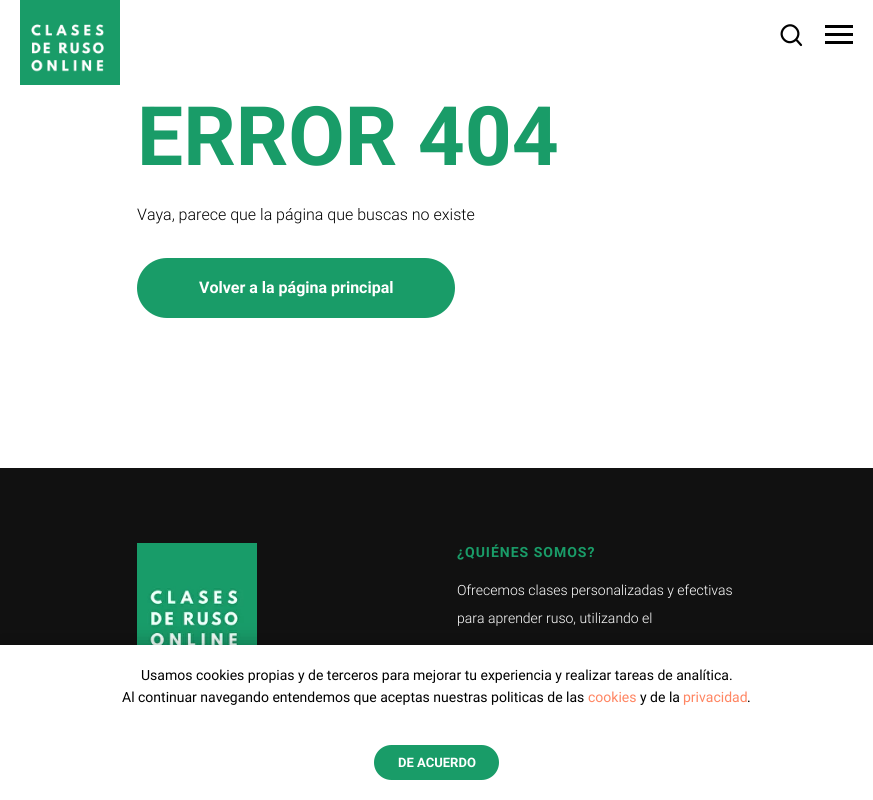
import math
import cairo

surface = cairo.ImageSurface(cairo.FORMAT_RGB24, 873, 800)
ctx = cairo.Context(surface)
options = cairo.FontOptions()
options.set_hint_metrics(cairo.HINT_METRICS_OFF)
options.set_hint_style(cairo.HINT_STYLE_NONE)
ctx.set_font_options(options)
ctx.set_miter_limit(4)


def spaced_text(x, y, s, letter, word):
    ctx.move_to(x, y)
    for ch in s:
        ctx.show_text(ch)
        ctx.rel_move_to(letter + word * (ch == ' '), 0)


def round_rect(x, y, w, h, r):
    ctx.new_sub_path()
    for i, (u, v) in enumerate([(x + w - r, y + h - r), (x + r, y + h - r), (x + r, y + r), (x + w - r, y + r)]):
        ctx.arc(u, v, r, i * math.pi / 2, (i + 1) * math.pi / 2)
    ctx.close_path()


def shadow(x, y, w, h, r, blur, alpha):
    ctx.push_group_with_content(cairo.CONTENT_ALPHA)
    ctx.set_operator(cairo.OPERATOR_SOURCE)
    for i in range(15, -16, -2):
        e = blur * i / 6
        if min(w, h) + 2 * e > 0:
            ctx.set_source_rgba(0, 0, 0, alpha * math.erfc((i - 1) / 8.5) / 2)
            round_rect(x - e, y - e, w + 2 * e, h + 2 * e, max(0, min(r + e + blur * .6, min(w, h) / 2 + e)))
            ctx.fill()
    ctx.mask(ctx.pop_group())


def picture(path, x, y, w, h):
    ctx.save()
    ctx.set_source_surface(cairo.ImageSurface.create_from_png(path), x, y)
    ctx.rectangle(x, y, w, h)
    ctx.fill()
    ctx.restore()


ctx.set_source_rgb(1, 1, 1)
ctx.paint()
picture("img1.png", 20, 0, 100, 85)
ctx.new_path()
ctx.move_to(796, 28)
ctx.curve_to(803.5, 36, 791.5, 47.5, 784, 39.5)
ctx.curve_to(776.5, 31.5, 788.5, 20, 796, 28)
ctx.close_path()
ctx.set_source_rgb(0, 0, 0)
ctx.set_line_width(2.2)
ctx.stroke()
ctx.new_path()
ctx.move_to(797, 40.5)
ctx.line_to(801, 45)
ctx.set_line_cap(cairo.LINE_CAP_ROUND)
ctx.stroke()
ctx.rectangle(825, 25, 28, 3)
ctx.fill()
ctx.rectangle(825, 33, 28, 3)
ctx.fill()
ctx.rectangle(825, 41, 28, 3)
ctx.fill()
ctx.select_font_face("Roboto", cairo.FONT_SLANT_NORMAL, cairo.FONT_WEIGHT_BOLD)
ctx.set_font_size(82)
ctx.set_source_rgb(0.098, 0.612, 0.408)
ctx.move_to(137, 165)
ctx.show_text("ERROR 404")
ctx.select_font_face("Roboto Light")
ctx.set_font_size(16)
ctx.set_source_rgb(0, 0, 0)
ctx.move_to(137, 220)
ctx.show_text("Vaya, parece que la página que buscas no existe")
ctx.set_source_rgb(0.098, 0.612, 0.408)
round_rect(137, 258, 318, 60, 30)
ctx.fill()
ctx.select_font_face("Roboto", cairo.FONT_SLANT_NORMAL, cairo.FONT_WEIGHT_BOLD)
ctx.set_source_rgb(1, 1, 1)
ctx.move_to(199, 293)
ctx.show_text("Volver a la página principal")
ctx.set_source_rgb(0.067, 0.067, 0.067)
ctx.rectangle(0, 468, 873, 177)
ctx.fill()
picture("img2.png", 137, 543, 120, 102)
ctx.set_font_size(14)
ctx.set_source_rgb(0.098, 0.612, 0.408)
spaced_text(457, 557, "¿QUIÉNES SOMOS?", 1, 0)
ctx.select_font_face("Roboto Light")
ctx.set_source_rgb(1, 1, 1)
ctx.move_to(457, 595)
ctx.show_text("Ofrecemos clases personalizadas y efectivas")
ctx.move_to(457, 623)
ctx.show_text("para aprender ruso, utilizando el")
ctx.set_source_rgb(0, 0, 0)
shadow(0, 645, 873, 155, 0, 10, 0.3)
ctx.set_source_rgb(1, 1, 1)
ctx.rectangle(0, 645, 873, 155)
ctx.fill()
ctx.select_font_face("Roboto")
ctx.set_source_rgb(0, 0, 0)
ctx.move_to(141, 680)
ctx.show_text("Usamos cookies propias y de terceros para mejorar tu experiencia y realizar tareas de analítica.")
ctx.move_to(122, 702)
ctx.show_text("Al continuar navegando entendemos que aceptas nuestras politicas de las")
ctx.set_source_rgb(1, 0.522, 0.384)
ctx.move_to(588, 702)
ctx.show_text("cookies")
ctx.set_source_rgb(0, 0, 0)
ctx.move_to(640, 702)
ctx.show_text("y de la")
ctx.set_source_rgb(1, 0.522, 0.384)
ctx.move_to(683, 702)
ctx.show_text("privacidad")
ctx.set_source_rgb(0, 0, 0)
ctx.move_to(747, 702)
ctx.show_text(".")
ctx.set_source_rgb(0.098, 0.612, 0.408)
round_rect(374, 745, 125, 35, 17.5)
ctx.fill()
ctx.select_font_face("Roboto", cairo.FONT_SLANT_NORMAL, cairo.FONT_WEIGHT_BOLD)
ctx.set_font_size(13)
ctx.set_source_rgb(1, 1, 1)
ctx.move_to(398, 767)
ctx.show_text("DE ACUERDO")
surface.write_to_png("page.png")
